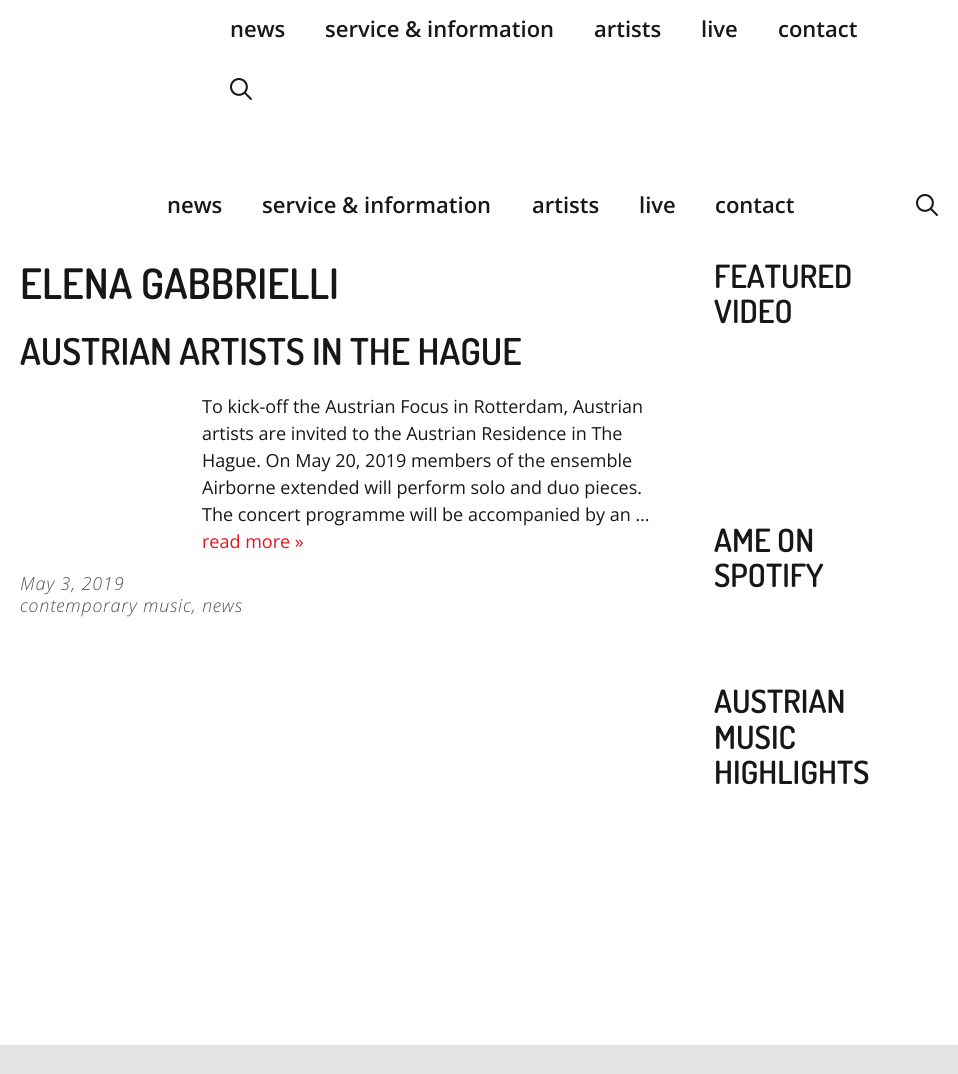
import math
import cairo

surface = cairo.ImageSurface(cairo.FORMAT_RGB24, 958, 1074)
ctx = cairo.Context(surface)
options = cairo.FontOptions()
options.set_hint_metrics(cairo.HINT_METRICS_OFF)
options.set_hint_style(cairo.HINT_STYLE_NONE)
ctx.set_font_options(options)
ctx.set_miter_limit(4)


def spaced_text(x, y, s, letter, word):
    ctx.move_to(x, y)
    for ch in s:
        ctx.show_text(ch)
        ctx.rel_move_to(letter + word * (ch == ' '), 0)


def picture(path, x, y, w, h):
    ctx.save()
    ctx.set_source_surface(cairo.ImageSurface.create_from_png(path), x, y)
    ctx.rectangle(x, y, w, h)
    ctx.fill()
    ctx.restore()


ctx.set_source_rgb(1, 1, 1)
ctx.paint()
ctx.select_font_face("Open Sans SemiBold")
ctx.set_font_size(22)
ctx.set_source_rgb(0.09, 0.09, 0.09)
ctx.move_to(230, 37)
ctx.show_text("news")
ctx.move_to(325, 37)
ctx.show_text("service & information")
ctx.move_to(594, 37)
ctx.show_text("artists")
ctx.move_to(701, 37)
ctx.show_text("live")
ctx.move_to(778, 37)
ctx.show_text("contact")
picture("img1.png", 230, 78, 22, 22)
ctx.move_to(167, 213)
ctx.show_text("news")
ctx.move_to(262, 213)
ctx.show_text("service & information")
ctx.move_to(532, 213)
ctx.show_text("artists")
ctx.move_to(639, 213)
ctx.show_text("live")
ctx.move_to(715, 213)
ctx.show_text("contact")
picture("img1.png", 916, 194, 22, 22)
ctx.select_font_face("Dosis SemiBold")
ctx.set_font_size(42)
ctx.move_to(20, 299)
ctx.show_text("ELENA GABBRIELLI")
ctx.set_font_size(37)
ctx.move_to(20, 365)
ctx.show_text("AUSTRIAN ARTISTS IN THE HAGUE")
ctx.select_font_face("Open Sans")
ctx.set_font_size(18)
ctx.move_to(202, 413)
ctx.show_text("To kick-off the Austrian Focus in Rotterdam, Austrian")
ctx.move_to(202, 440)
ctx.show_text("artists are invited to the Austrian Residence in The")
ctx.move_to(202, 467)
ctx.show_text("Hague. On May 20, 2019 members of the ensemble")
ctx.move_to(202, 494)
ctx.show_text("Airborne extended will perform solo and duo pieces.")
ctx.move_to(202, 521)
ctx.show_text("The concert programme will be accompanied by an …")
ctx.set_source_rgb(0.906, 0.075, 0.102)
ctx.move_to(202, 548)
ctx.show_text("read more »")
ctx.select_font_face("Open Sans Light", cairo.FONT_SLANT_ITALIC)
ctx.set_source_rgb(0.322, 0.322, 0.322)
spaced_text(20, 590, "May 3, 2019", 0.8, 0)
spaced_text(20, 612, "contemporary music, news", 0.8, 0)
ctx.select_font_face("Dosis SemiBold")
ctx.set_font_size(32)
ctx.set_source_rgb(0.09, 0.09, 0.09)
ctx.move_to(714, 288)
ctx.show_text("FEATURED")
ctx.move_to(714, 323)
ctx.show_text("VIDEO")
ctx.move_to(714, 552)
ctx.show_text("AME ON")
ctx.move_to(714, 587)
ctx.show_text("SPOTIFY")
ctx.move_to(714, 713)
ctx.show_text("AUSTRIAN")
ctx.move_to(714, 749)
ctx.show_text("MUSIC")
ctx.move_to(714, 784)
ctx.show_text("HIGHLIGHTS")
ctx.set_source_rgb(0.89, 0.89, 0.89)
ctx.rectangle(0, 1045, 958, 29)
ctx.fill()
surface.write_to_png("page.png")
